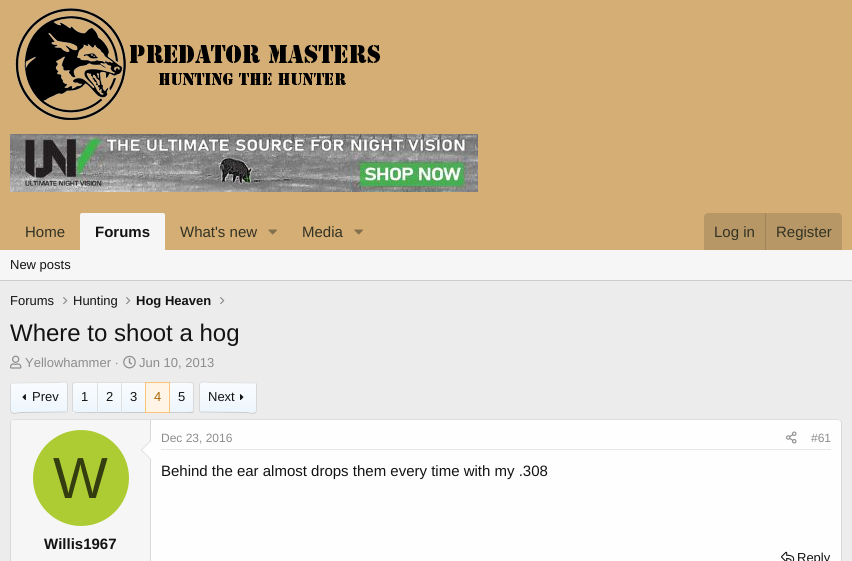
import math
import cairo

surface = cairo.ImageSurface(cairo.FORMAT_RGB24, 852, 561)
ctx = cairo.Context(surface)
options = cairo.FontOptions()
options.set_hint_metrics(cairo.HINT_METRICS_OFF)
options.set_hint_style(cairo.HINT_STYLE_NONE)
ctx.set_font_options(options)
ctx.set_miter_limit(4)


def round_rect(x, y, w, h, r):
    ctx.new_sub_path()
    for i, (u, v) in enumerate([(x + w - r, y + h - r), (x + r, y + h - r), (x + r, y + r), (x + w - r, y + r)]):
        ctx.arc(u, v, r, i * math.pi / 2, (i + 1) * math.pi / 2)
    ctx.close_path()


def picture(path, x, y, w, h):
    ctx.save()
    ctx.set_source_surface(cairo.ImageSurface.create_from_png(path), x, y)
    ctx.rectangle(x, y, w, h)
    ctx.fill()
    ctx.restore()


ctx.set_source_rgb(0.925, 0.925, 0.925)
ctx.paint()
ctx.set_source_rgb(0.835, 0.682, 0.459)
ctx.rectangle(0, 0, 852, 250)
ctx.fill()
picture("img1.png", 15, 8, 365, 112)
picture("img2.png", 10, 134, 468, 58)
ctx.select_font_face("Liberation Sans")
ctx.set_font_size(15)
ctx.set_source_rgb(0.196, 0.196, 0.141)
ctx.move_to(25, 237)
ctx.show_text("Home")
ctx.set_source_rgb(0.961, 0.961, 0.961)
ctx.new_path()
ctx.move_to(82, 213)
ctx.line_to(163, 213)
ctx.curve_to(164, 213, 165, 214, 165, 215)
ctx.line_to(165, 250)
ctx.line_to(80, 250)
ctx.line_to(80, 215)
ctx.curve_to(80, 214, 81, 213, 82, 213)
ctx.close_path()
ctx.fill()
ctx.select_font_face("Liberation Sans", cairo.FONT_SLANT_NORMAL, cairo.FONT_WEIGHT_BOLD)
ctx.set_source_rgb(0.078, 0.078, 0.078)
ctx.move_to(95, 237)
ctx.show_text("Forums")
ctx.select_font_face("Liberation Sans")
ctx.set_source_rgb(0.196, 0.196, 0.141)
ctx.move_to(180, 237)
ctx.show_text("What's new")
picture("img3.png", 268, 229, 9, 6)
ctx.move_to(302, 237)
ctx.show_text("Media")
picture("img3.png", 354, 229, 9, 6)
ctx.set_source_rgb(0.722, 0.592, 0.4)
ctx.new_path()
ctx.move_to(708, 213)
ctx.line_to(838, 213)
ctx.curve_to(840, 213, 842, 215, 842, 217)
ctx.line_to(842, 250)
ctx.line_to(704, 250)
ctx.line_to(704, 217)
ctx.curve_to(704, 215, 706, 213, 708, 213)
ctx.close_path()
ctx.fill()
ctx.set_source_rgb(0.196, 0.196, 0.141)
ctx.move_to(714, 237)
ctx.show_text("Log in")
ctx.set_source_rgb(0.624, 0.514, 0.353)
ctx.rectangle(765, 213, 1, 37)
ctx.fill()
ctx.set_source_rgb(0.196, 0.196, 0.141)
ctx.move_to(776, 237)
ctx.show_text("Register")
ctx.set_source_rgb(0.961, 0.961, 0.961)
ctx.rectangle(0, 250, 852, 30)
ctx.fill()
ctx.set_source_rgb(0.796, 0.796, 0.796)
ctx.rectangle(0, 280, 852, 1)
ctx.fill()
ctx.set_font_size(13)
ctx.set_source_rgb(0.078, 0.078, 0.078)
ctx.move_to(10, 269)
ctx.show_text("New posts")
ctx.move_to(10, 305)
ctx.show_text("Forums")
picture("img4.png", 63, 297, 5, 8)
ctx.move_to(73, 305)
ctx.show_text("Hunting")
picture("img4.png", 126, 297, 5, 8)
ctx.select_font_face("Liberation Sans", cairo.FONT_SLANT_NORMAL, cairo.FONT_WEIGHT_BOLD)
ctx.move_to(136, 305)
ctx.show_text("Hog Heaven")
picture("img4.png", 220, 297, 5, 8)
ctx.select_font_face("Liberation Sans")
ctx.set_font_size(24)
ctx.move_to(10, 341)
ctx.show_text("Where to shoot a hog")
picture("img5.png", 10, 355, 12, 14)
ctx.set_font_size(13)
ctx.set_source_rgb(0.549, 0.549, 0.549)
ctx.move_to(25, 367)
ctx.show_text("Yellowhammer ·")
picture("img6.png", 123, 355, 13, 14)
ctx.move_to(139, 367)
ctx.show_text("Jun 10, 2013")
ctx.save()
round_rect(10, 382, 58, 31, 2)
ctx.clip()
gradient = cairo.LinearGradient(39, 383, 39, 354)
gradient.add_color_stop_rgba(0, 0.929, 0.965, 0.992, 1)
gradient.add_color_stop_rgba(1, 0.98, 0.988, 0.996, 1)
ctx.set_source(gradient)
ctx.rectangle(10, 382, 58, 1)
ctx.fill()
gradient = cairo.LinearGradient(39, 412, 39, 383)
gradient.add_color_stop_rgba(0, 0.929, 0.965, 0.992, 1)
gradient.add_color_stop_rgba(1, 0.98, 0.988, 0.996, 1)
ctx.set_source(gradient)
ctx.rectangle(10, 383, 58, 29)
ctx.fill()
gradient = cairo.LinearGradient(39, 441, 39, 412)
gradient.add_color_stop_rgba(0, 0.929, 0.965, 0.992, 1)
gradient.add_color_stop_rgba(1, 0.98, 0.988, 0.996, 1)
ctx.set_source(gradient)
ctx.rectangle(10, 412, 58, 1)
ctx.fill()
ctx.restore()
ctx.new_path()
ctx.move_to(11, 383)
ctx.line_to(57, 382.5)
ctx.curve_to(60.5, 382.5, 64.5, 380.5, 67, 383)
ctx.set_source_rgb(0.875, 0.875, 0.875)
ctx.set_line_width(1)
ctx.stroke()
ctx.new_path()
ctx.move_to(67, 383)
ctx.line_to(67.5, 384)
ctx.line_to(67.5, 411)
ctx.line_to(67, 412)
ctx.set_source_rgb(0.847, 0.847, 0.847)
ctx.stroke()
ctx.new_path()
ctx.move_to(67, 412)
ctx.line_to(21, 412.5)
ctx.curve_to(17.5, 412.5, 13.5, 414.5, 11, 412)
ctx.set_source_rgb(0.796, 0.796, 0.796)
ctx.stroke()
ctx.new_path()
ctx.move_to(11, 412)
ctx.line_to(10.5, 411)
ctx.line_to(10.5, 384)
ctx.line_to(11, 383)
ctx.set_source_rgb(0.847, 0.847, 0.847)
ctx.stroke()
picture("img7.png", 22, 394, 4, 7)
ctx.set_source_rgb(0.078, 0.078, 0.078)
ctx.move_to(32, 401)
ctx.show_text("Prev")
gradient = cairo.LinearGradient(85, 412, 85, 383)
gradient.add_color_stop_rgba(0, 0.929, 0.965, 0.992, 1)
gradient.add_color_stop_rgba(1, 0.98, 0.988, 0.996, 1)
ctx.set_source(gradient)
ctx.rectangle(72, 383, 25, 29)
ctx.fill()
gradient = cairo.LinearGradient(85, 441, 85, 412)
gradient.add_color_stop_rgba(0, 0.929, 0.965, 0.992, 1)
gradient.add_color_stop_rgba(1, 0.98, 0.988, 0.996, 1)
ctx.set_source(gradient)
ctx.rectangle(72, 412, 25, 1)
ctx.fill()
ctx.set_source_rgb(0.875, 0.875, 0.875)
ctx.new_path()
ctx.move_to(74, 382)
ctx.line_to(72.5, 382.5)
ctx.line_to(73.5, 383.5)
ctx.curve_to(74, 382.5, 94.5, 383, 97, 383)
ctx.line_to(97, 382)
ctx.close_path()
ctx.fill()
ctx.set_source_rgb(0.796, 0.796, 0.796)
ctx.new_path()
ctx.move_to(97, 413)
ctx.curve_to(94, 413, 74, 413.5, 73, 412)
ctx.line_to(73.5, 411.5)
ctx.curve_to(74, 412.5, 94.5, 412, 97, 412)
ctx.close_path()
ctx.fill()
ctx.set_source_rgb(0.847, 0.847, 0.847)
ctx.new_path()
ctx.move_to(72, 383.5)
ctx.line_to(72, 411.5)
ctx.line_to(73, 412)
ctx.line_to(73.5, 411.5)
ctx.line_to(73, 411)
ctx.line_to(73, 384)
ctx.line_to(73.5, 383.5)
ctx.line_to(72.5, 382.5)
ctx.close_path()
ctx.fill()
ctx.set_source_rgb(0.078, 0.078, 0.078)
ctx.move_to(81, 401)
ctx.show_text("1")
gradient = cairo.LinearGradient(110, 412, 110, 383)
gradient.add_color_stop_rgba(0, 0.929, 0.965, 0.992, 1)
gradient.add_color_stop_rgba(1, 0.98, 0.988, 0.996, 1)
ctx.set_source(gradient)
ctx.rectangle(98, 383, 23, 29)
ctx.fill()
ctx.set_source_rgb(0.875, 0.875, 0.875)
ctx.rectangle(97, 382, 48, 1)
ctx.fill()
ctx.set_source_rgb(0.796, 0.796, 0.796)
ctx.rectangle(97, 412, 48, 1)
ctx.fill()
ctx.set_source_rgb(0.875, 0.875, 0.875)
ctx.rectangle(97, 382, 1, 31)
ctx.fill()
ctx.set_source_rgb(0.078, 0.078, 0.078)
ctx.move_to(106, 401)
ctx.show_text("2")
gradient = cairo.LinearGradient(134, 412, 134, 383)
gradient.add_color_stop_rgba(0, 0.929, 0.965, 0.992, 1)
gradient.add_color_stop_rgba(1, 0.98, 0.988, 0.996, 1)
ctx.set_source(gradient)
ctx.rectangle(122, 383, 23, 29)
ctx.fill()
ctx.set_source_rgb(0.875, 0.875, 0.875)
ctx.rectangle(121, 382, 1, 31)
ctx.fill()
ctx.set_source_rgb(0.078, 0.078, 0.078)
ctx.move_to(130, 401)
ctx.show_text("3")
ctx.set_source_rgb(1, 0.957, 0.898)
ctx.rectangle(145.5, 382.5, 24, 30)
ctx.fill_preserve()
ctx.set_source_rgb(0.976, 0.769, 0.475)
ctx.stroke()
ctx.set_source_rgb(0.667, 0.404, 0.035)
ctx.move_to(154, 401)
ctx.show_text("4")
gradient = cairo.LinearGradient(182, 412, 182, 383)
gradient.add_color_stop_rgba(0, 0.929, 0.965, 0.992, 1)
gradient.add_color_stop_rgba(1, 0.98, 0.988, 0.996, 1)
ctx.set_source(gradient)
ctx.rectangle(170, 383, 24, 29)
ctx.fill()
ctx.set_source_rgb(0.875, 0.875, 0.875)
ctx.new_path()
ctx.move_to(170, 382)
ctx.line_to(170, 383)
ctx.curve_to(172.5, 383, 192, 382.5, 192.5, 383.5)
ctx.line_to(193.5, 382.5)
ctx.line_to(192, 382)
ctx.close_path()
ctx.fill()
ctx.set_source_rgb(0.847, 0.847, 0.847)
ctx.new_path()
ctx.move_to(192.5, 411.5)
ctx.line_to(193, 411)
ctx.line_to(193, 384)
ctx.line_to(192.5, 383.5)
ctx.line_to(193.5, 382.5)
ctx.line_to(194, 384)
ctx.line_to(194, 411)
ctx.line_to(193.5, 412.5)
ctx.close_path()
ctx.fill()
ctx.set_source_rgb(0.796, 0.796, 0.796)
ctx.new_path()
ctx.move_to(170, 412)
ctx.line_to(170, 413)
ctx.line_to(192, 413)
ctx.curve_to(192.5, 413, 193, 413, 193.5, 412.5)
ctx.line_to(192.5, 411.5)
ctx.curve_to(192, 412.5, 172.5, 412, 170, 412)
ctx.close_path()
ctx.fill()
ctx.set_source_rgb(0.078, 0.078, 0.078)
ctx.move_to(178, 401)
ctx.show_text("5")
ctx.save()
round_rect(199, 382, 58, 31, 2)
ctx.clip()
gradient = cairo.LinearGradient(228, 383, 228, 354)
gradient.add_color_stop_rgba(0, 0.929, 0.965, 0.992, 1)
gradient.add_color_stop_rgba(1, 0.98, 0.988, 0.996, 1)
ctx.set_source(gradient)
ctx.rectangle(199, 382, 58, 1)
ctx.fill()
gradient = cairo.LinearGradient(228, 412, 228, 383)
gradient.add_color_stop_rgba(0, 0.929, 0.965, 0.992, 1)
gradient.add_color_stop_rgba(1, 0.98, 0.988, 0.996, 1)
ctx.set_source(gradient)
ctx.rectangle(199, 383, 58, 29)
ctx.fill()
gradient = cairo.LinearGradient(228, 441, 228, 412)
gradient.add_color_stop_rgba(0, 0.929, 0.965, 0.992, 1)
gradient.add_color_stop_rgba(1, 0.98, 0.988, 0.996, 1)
ctx.set_source(gradient)
ctx.rectangle(199, 412, 58, 1)
ctx.fill()
ctx.restore()
ctx.new_path()
ctx.move_to(200, 383)
ctx.curve_to(202.5, 380.5, 206.5, 382.5, 210, 382.5)
ctx.line_to(256, 383)
ctx.set_source_rgb(0.875, 0.875, 0.875)
ctx.stroke()
ctx.new_path()
ctx.move_to(256, 383)
ctx.line_to(256.5, 384)
ctx.line_to(256.5, 411)
ctx.line_to(256, 412)
ctx.set_source_rgb(0.847, 0.847, 0.847)
ctx.stroke()
ctx.new_path()
ctx.move_to(256, 412)
ctx.curve_to(253.5, 414.5, 249.5, 412.5, 246, 412.5)
ctx.line_to(200, 412)
ctx.set_source_rgb(0.796, 0.796, 0.796)
ctx.stroke()
ctx.new_path()
ctx.move_to(200, 412)
ctx.line_to(199.5, 411)
ctx.line_to(199.5, 384)
ctx.line_to(200, 383)
ctx.set_source_rgb(0.847, 0.847, 0.847)
ctx.stroke()
ctx.set_source_rgb(0.078, 0.078, 0.078)
ctx.move_to(208, 401)
ctx.show_text("Next")
picture("img8.png", 240, 394, 4, 7)
ctx.set_source_rgb(0.996, 0.996, 0.996)
round_rect(10, 419, 832, 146, 4)
ctx.fill()
ctx.new_path()
ctx.move_to(11.5, 420.5)
ctx.line_to(14, 419.5)
ctx.line_to(838, 419.5)
ctx.line_to(840.5, 420.5)
ctx.set_source_rgb(0.875, 0.875, 0.875)
ctx.stroke()
ctx.new_path()
ctx.move_to(840.5, 420.5)
ctx.curve_to(841, 421, 841.5, 422, 841.5, 423)
ctx.line_to(841.5, 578)
ctx.curve_to(841.5, 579, 841, 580, 840.5, 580.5)
ctx.set_source_rgb(0.847, 0.847, 0.847)
ctx.stroke()
ctx.new_path()
ctx.move_to(11.5, 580.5)
ctx.curve_to(11, 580, 10.5, 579, 10.5, 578)
ctx.line_to(10.5, 423)
ctx.curve_to(10.5, 422, 11, 421, 11.5, 420.5)
ctx.stroke()
ctx.set_source_rgb(0.961, 0.961, 0.961)
ctx.new_path()
ctx.move_to(14, 420)
ctx.line_to(151, 420)
ctx.line_to(151, 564)
ctx.line_to(14, 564)
ctx.curve_to(12.5, 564, 11, 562.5, 11, 561)
ctx.line_to(11, 423)
ctx.curve_to(11, 421.5, 12.5, 420, 14, 420)
ctx.close_path()
ctx.fill()
ctx.set_source_rgb(0.847, 0.847, 0.847)
ctx.rectangle(150, 420, 1, 141)
ctx.fill()
ctx.new_path()
ctx.move_to(151, 440)
ctx.line_to(151, 460)
ctx.line_to(141, 450)
ctx.close_path()
ctx.fill()
ctx.set_source_rgb(0.996, 0.996, 0.996)
ctx.new_path()
ctx.move_to(151, 441)
ctx.line_to(151, 459)
ctx.line_to(142, 450)
ctx.close_path()
ctx.fill()
ctx.set_source_rgb(0.678, 0.8, 0.2)
ctx.arc(81, 478, 48, 0, 2 * math.pi)
ctx.fill()
ctx.set_font_size(58)
ctx.set_source_rgb(0.204, 0.239, 0.059)
ctx.move_to(53, 498)
ctx.show_text("W")
ctx.select_font_face("Liberation Sans", cairo.FONT_SLANT_NORMAL, cairo.FONT_WEIGHT_BOLD)
ctx.set_font_size(15)
ctx.set_source_rgb(0.078, 0.078, 0.078)
ctx.move_to(44, 549)
ctx.show_text("Willis1967")
ctx.set_source_rgb(0.906, 0.906, 0.906)
ctx.rectangle(161, 449, 670, 1)
ctx.fill()
ctx.select_font_face("Liberation Sans")
ctx.set_font_size(12)
ctx.set_source_rgb(0.549, 0.549, 0.549)
ctx.move_to(161, 442)
ctx.show_text("Dec 23, 2016")
picture("img9.png", 786, 431, 11, 13)
ctx.move_to(811, 442)
ctx.show_text("#61")
ctx.set_font_size(15)
ctx.set_source_rgb(0.078, 0.078, 0.078)
ctx.move_to(161, 476)
ctx.show_text("Behind the ear almost drops them every time with my .308")
picture("img10.png", 781, 551, 14, 10)
ctx.set_font_size(13)
ctx.move_to(797, 562)
ctx.show_text("Reply")
surface.write_to_png("page.png")
